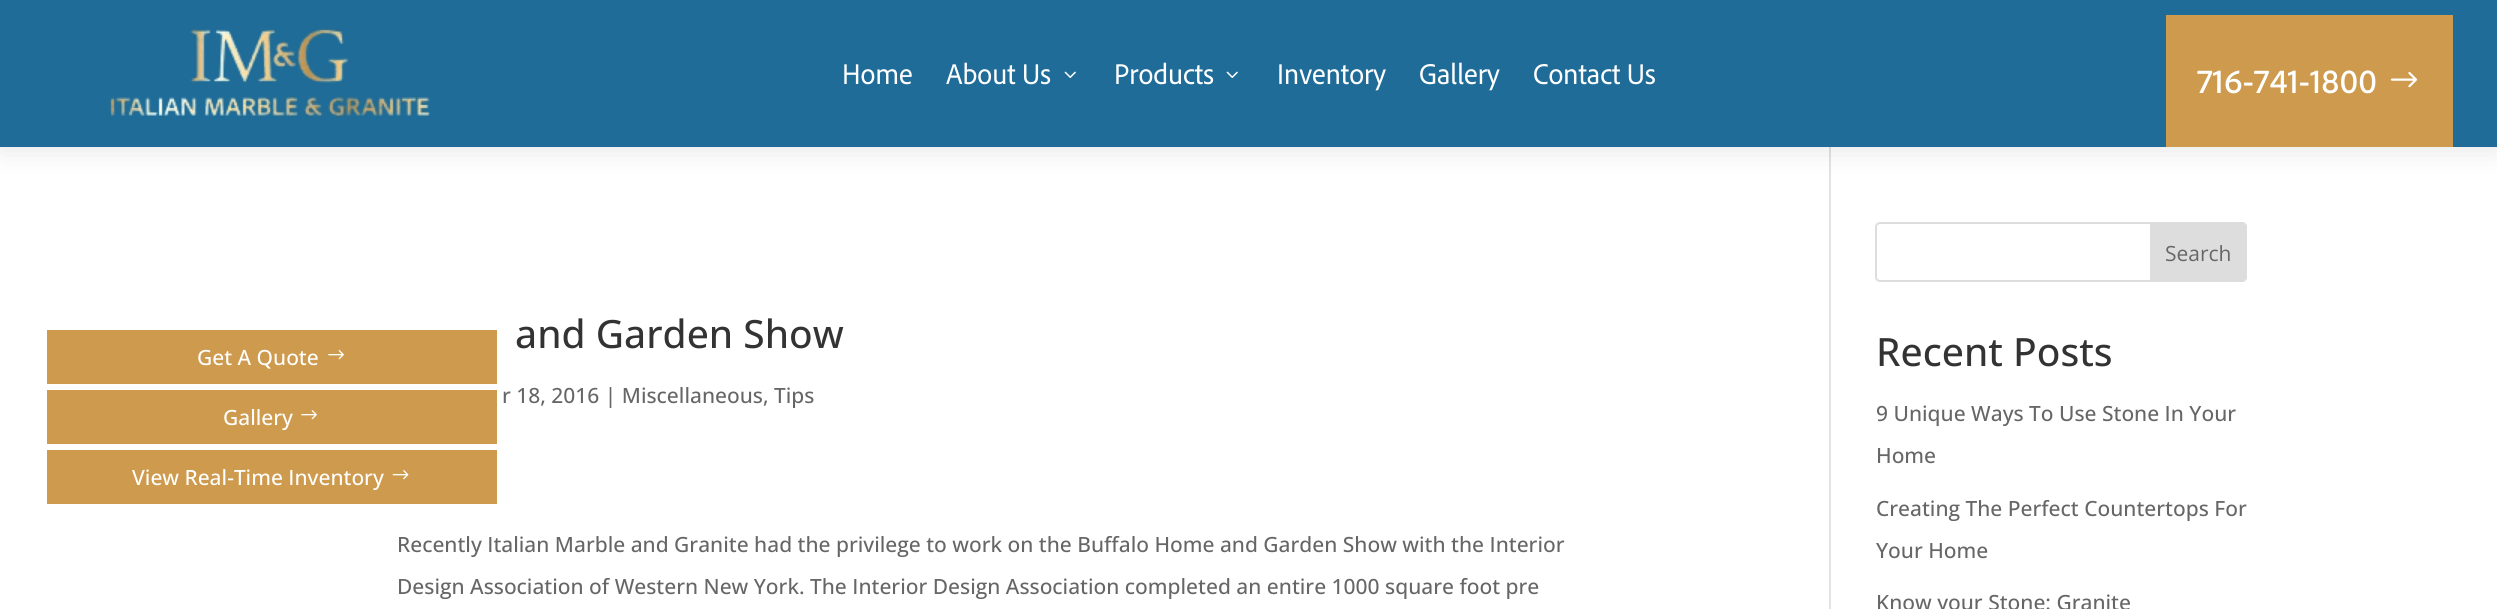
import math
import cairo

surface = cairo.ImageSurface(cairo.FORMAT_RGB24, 2497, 609)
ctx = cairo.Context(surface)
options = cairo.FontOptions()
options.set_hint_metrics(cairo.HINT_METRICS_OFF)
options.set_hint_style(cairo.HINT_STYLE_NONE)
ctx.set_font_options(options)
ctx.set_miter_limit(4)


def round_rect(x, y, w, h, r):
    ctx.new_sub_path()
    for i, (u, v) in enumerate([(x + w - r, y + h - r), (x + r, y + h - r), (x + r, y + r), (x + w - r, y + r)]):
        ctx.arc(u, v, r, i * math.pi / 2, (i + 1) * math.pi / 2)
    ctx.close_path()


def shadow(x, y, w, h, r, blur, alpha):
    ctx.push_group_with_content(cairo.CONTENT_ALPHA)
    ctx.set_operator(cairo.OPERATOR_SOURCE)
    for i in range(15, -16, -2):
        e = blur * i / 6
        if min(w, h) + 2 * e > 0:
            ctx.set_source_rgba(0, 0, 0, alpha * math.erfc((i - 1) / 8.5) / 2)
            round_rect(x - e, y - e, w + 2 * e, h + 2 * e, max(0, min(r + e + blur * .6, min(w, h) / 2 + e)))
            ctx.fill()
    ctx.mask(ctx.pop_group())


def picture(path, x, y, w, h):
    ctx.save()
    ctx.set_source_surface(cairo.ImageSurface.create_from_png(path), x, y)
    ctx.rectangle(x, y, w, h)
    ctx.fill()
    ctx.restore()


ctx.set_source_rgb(1, 1, 1)
ctx.paint()
ctx.set_source_rgb(0.886, 0.886, 0.886)
ctx.rectangle(1829, 147, 2, 462)
ctx.fill()
ctx.set_source_rgb(0, 0, 0)
shadow(0, 3, 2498, 147, 0, 13.5, 0.1)
ctx.set_source_rgb(0.122, 0.424, 0.596)
ctx.rectangle(0, 0, 2497, 147)
ctx.fill()
picture("img1.png", 109, 28, 321, 90)
ctx.select_font_face("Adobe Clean")
ctx.set_font_size(30)
ctx.set_source_rgb(1, 1, 1)
ctx.move_to(842, 84)
ctx.show_text("Home")
ctx.move_to(946, 84)
ctx.show_text("About Us")
picture("img2.png", 1064, 71, 12, 7)
ctx.move_to(1114, 84)
ctx.show_text("Products")
picture("img2.png", 1226, 71, 12, 7)
ctx.move_to(1277, 84)
ctx.show_text("Inventory")
ctx.move_to(1419, 84)
ctx.show_text("Gallery")
ctx.move_to(1533, 84)
ctx.show_text("Contact Us")
ctx.set_source_rgb(0.808, 0.604, 0.302)
ctx.rectangle(2166, 15, 287, 132)
ctx.fill()
ctx.select_font_face("Adobe Clean Medium")
ctx.set_font_size(35)
ctx.set_source_rgb(1, 1, 1)
ctx.move_to(2197, 93)
ctx.show_text("716-741-1800")
picture("img3.png", 2390, 72, 28, 16)
ctx.set_source_rgb(0.808, 0.604, 0.302)
ctx.rectangle(47, 330, 450, 54)
ctx.fill()
ctx.select_font_face("Open Sans Medium")
ctx.set_font_size(21)
ctx.set_source_rgb(1, 1, 1)
ctx.move_to(197, 365)
ctx.show_text("Get A Quote")
picture("img4.png", 328, 350, 16, 10)
ctx.set_source_rgb(0.808, 0.604, 0.302)
ctx.rectangle(47, 390, 450, 54)
ctx.fill()
ctx.set_source_rgb(1, 1, 1)
ctx.move_to(223, 425)
ctx.show_text("Gallery")
picture("img4.png", 301, 410, 16, 10)
ctx.set_source_rgb(0.808, 0.604, 0.302)
ctx.rectangle(47, 450, 450, 54)
ctx.fill()
ctx.set_source_rgb(1, 1, 1)
ctx.move_to(132, 485)
ctx.show_text("View Real-Time Inventory")
picture("img5.png", 392, 470, 17, 10)
ctx.set_font_size(39)
ctx.set_source_rgb(0.2, 0.2, 0.2)
ctx.move_to(515, 348)
ctx.show_text("and Garden Show")
ctx.set_font_size(21)
ctx.set_source_rgb(0.4, 0.4, 0.4)
ctx.move_to(502, 403)
ctx.show_text("r 18, 2016 | Miscellaneous, Tips")
ctx.move_to(397, 552)
ctx.show_text("Recently Italian Marble and Granite had the privilege to work on the Buffalo Home and Garden Show with the Interior")
ctx.move_to(397, 594)
ctx.show_text("Design Association of Western New York. The Interior Design Association completed an entire 1000 square foot pre")
round_rect(1876, 223, 370, 58, 4)
ctx.set_source_rgb(0.867, 0.867, 0.867)
ctx.stroke()
ctx.new_path()
ctx.move_to(2151, 223)
ctx.line_to(2242, 223)
ctx.curve_to(2244, 223, 2246, 225, 2246, 227)
ctx.line_to(2246, 277)
ctx.curve_to(2246, 279, 2244, 281, 2242, 281)
ctx.line_to(2151, 281)
ctx.close_path()
ctx.fill_preserve()
ctx.stroke()
ctx.select_font_face("Open Sans")
ctx.set_source_rgb(0.4, 0.4, 0.4)
ctx.move_to(2165, 261)
ctx.show_text("Search")
ctx.select_font_face("Open Sans Medium")
ctx.set_font_size(39)
ctx.set_source_rgb(0.2, 0.2, 0.2)
ctx.move_to(1876, 366)
ctx.show_text("Recent Posts")
ctx.set_font_size(21)
ctx.set_source_rgb(0.4, 0.4, 0.4)
ctx.move_to(1876, 421)
ctx.show_text("9 Unique Ways To Use Stone In Your")
ctx.move_to(1876, 463)
ctx.show_text("Home")
ctx.move_to(1876, 516)
ctx.show_text("Creating The Perfect Countertops For")
ctx.move_to(1876, 558)
ctx.show_text("Your Home")
ctx.move_to(1876, 610)
ctx.show_text("Know your Stone: Granite")
surface.write_to_png("page.png")
